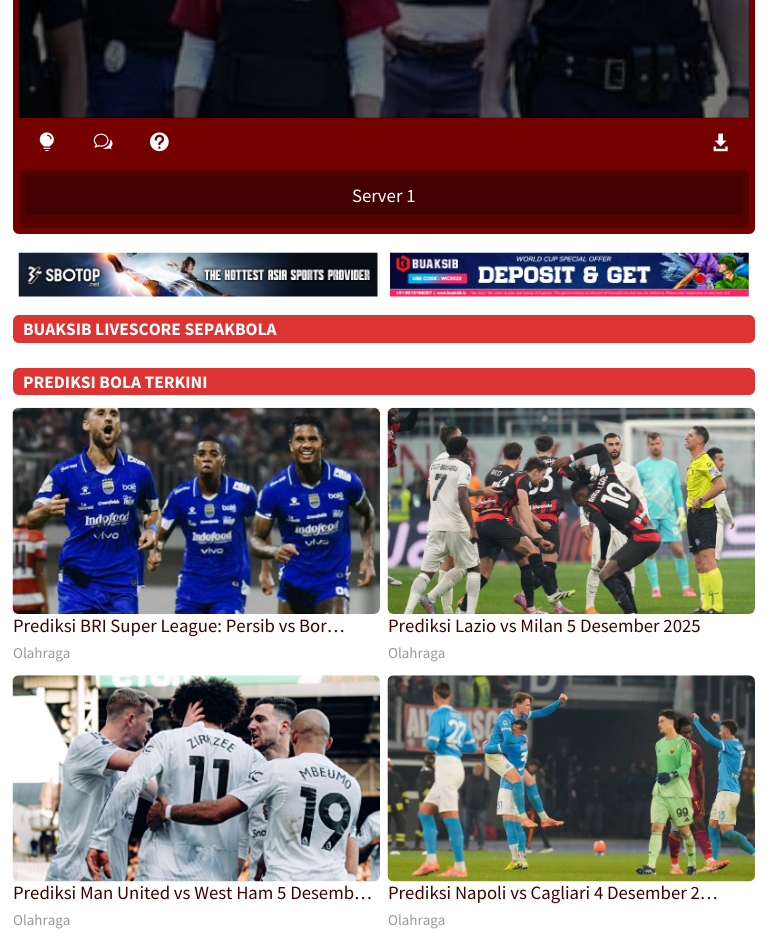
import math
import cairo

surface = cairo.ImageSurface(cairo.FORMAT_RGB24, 767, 946)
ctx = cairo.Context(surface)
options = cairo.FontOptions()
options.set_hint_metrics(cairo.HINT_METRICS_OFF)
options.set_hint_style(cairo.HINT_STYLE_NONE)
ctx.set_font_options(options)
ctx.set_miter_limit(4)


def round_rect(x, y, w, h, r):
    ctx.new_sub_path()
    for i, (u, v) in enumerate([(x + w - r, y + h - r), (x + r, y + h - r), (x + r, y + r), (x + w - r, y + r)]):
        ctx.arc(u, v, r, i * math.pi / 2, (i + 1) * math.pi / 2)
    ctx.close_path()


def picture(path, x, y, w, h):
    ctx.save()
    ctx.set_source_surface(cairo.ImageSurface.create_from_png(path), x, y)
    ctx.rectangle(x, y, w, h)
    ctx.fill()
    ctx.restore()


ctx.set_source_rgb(1, 1, 1)
ctx.paint()
ctx.set_source_rgb(0.459, 0, 0)
round_rect(13, -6, 742, 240, 6)
ctx.fill()
picture("img1.png", 18, 0, 1, 118)
ctx.set_source_rgb(0, 0, 0)
ctx.rectangle(19, 0, 730, 118)
ctx.fill()
picture("img2.png", 18, 0, 731, 118)
gradient = cairo.LinearGradient(384, -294, 384, 118)
gradient.add_color_stop_rgba(0, 0, 0, 0, 0.8)
gradient.add_color_stop_rgba(1, 0, 0, 0, 0)
ctx.set_source(gradient)
ctx.rectangle(19, 0, 730, 107)
ctx.fill()
picture("img3.png", 39, 132, 15, 20)
picture("img4.png", 93, 133, 20, 16)
picture("img5.png", 150, 132, 19, 20)
picture("img6.png", 713, 133, 15, 19)
ctx.set_source_rgb(0.322, 0, 0)
round_rect(19, 169, 730, 59, 6)
ctx.fill()
ctx.set_source_rgb(0.259, 0, 0)
round_rect(25, 175, 718, 40, 6)
ctx.fill()
ctx.select_font_face("Source Sans Pro")
ctx.set_font_size(18.75)
ctx.set_source_rgb(1, 1, 1)
ctx.move_to(352, 202)
ctx.show_text("Server 1")
picture("img7.png", 18, 252, 360, 45)
picture("img8.png", 390, 252, 359, 45)
ctx.set_source_rgb(0.867, 0.2, 0.2)
round_rect(13, 315, 742, 28, 6)
ctx.fill()
ctx.select_font_face("Source Sans Pro", cairo.FONT_SLANT_NORMAL, cairo.FONT_WEIGHT_BOLD)
ctx.set_font_size(17.5)
ctx.set_source_rgb(1, 1, 1)
ctx.move_to(23, 335)
ctx.show_text("BUAKSIB LIVESCORE SEPAKBOLA")
ctx.set_source_rgb(0.867, 0.2, 0.2)
round_rect(13, 368, 742, 27, 6)
ctx.fill()
ctx.set_source_rgb(1, 1, 1)
ctx.move_to(23, 388)
ctx.show_text("PREDIKSI BOLA TERKINI")
picture("img9.png", 12, 407, 368, 207)
ctx.select_font_face("Source Sans Pro")
ctx.set_font_size(18.75)
ctx.set_source_rgb(0.247, 0, 0)
ctx.move_to(13, 632)
ctx.show_text("Prediksi BRI Super League: Persib vs Bor…")
ctx.set_font_size(15)
ctx.set_source_rgb(0.6, 0.6, 0.6)
ctx.move_to(13, 658)
ctx.show_text("Olahraga")
picture("img10.png", 387, 407, 368, 207)
ctx.set_font_size(18.75)
ctx.set_source_rgb(0.247, 0, 0)
ctx.move_to(388, 632)
ctx.show_text("Prediksi Lazio vs Milan 5 Desember 2025")
ctx.set_font_size(15)
ctx.set_source_rgb(0.6, 0.6, 0.6)
ctx.move_to(388, 658)
ctx.show_text("Olahraga")
picture("img11.png", 12, 675, 368, 207)
ctx.set_font_size(18.75)
ctx.set_source_rgb(0.247, 0, 0)
ctx.move_to(13, 899)
ctx.show_text("Prediksi Man United vs West Ham 5 Desemb…")
ctx.set_font_size(15)
ctx.set_source_rgb(0.6, 0.6, 0.6)
ctx.move_to(13, 925)
ctx.show_text("Olahraga")
picture("img12.png", 387, 675, 368, 207)
ctx.set_font_size(18.75)
ctx.set_source_rgb(0.247, 0, 0)
ctx.move_to(388, 899)
ctx.show_text("Prediksi Napoli vs Cagliari 4 Desember 2…")
ctx.set_font_size(15)
ctx.set_source_rgb(0.6, 0.6, 0.6)
ctx.move_to(388, 925)
ctx.show_text("Olahraga")
surface.write_to_png("page.png")
